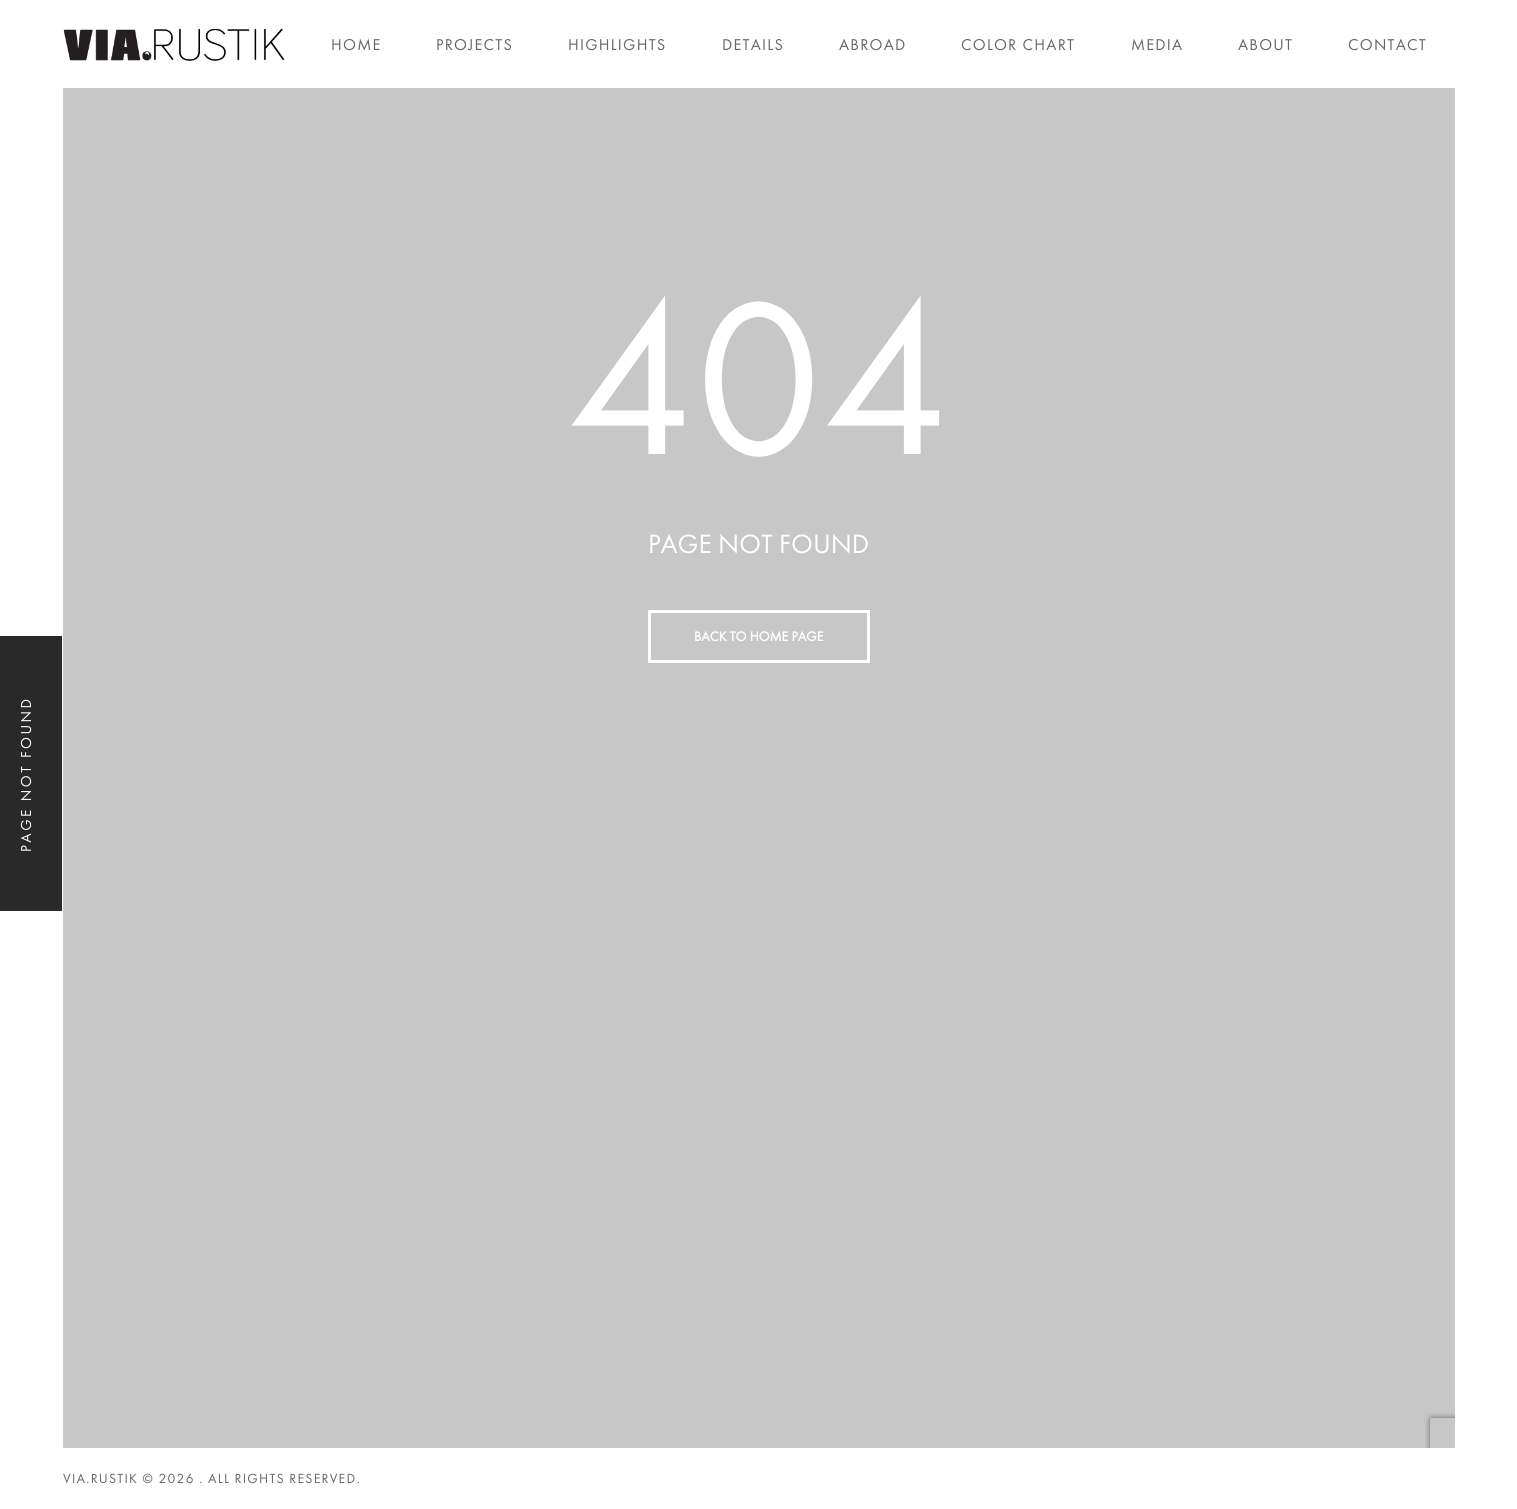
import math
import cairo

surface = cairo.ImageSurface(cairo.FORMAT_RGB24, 1517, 1509)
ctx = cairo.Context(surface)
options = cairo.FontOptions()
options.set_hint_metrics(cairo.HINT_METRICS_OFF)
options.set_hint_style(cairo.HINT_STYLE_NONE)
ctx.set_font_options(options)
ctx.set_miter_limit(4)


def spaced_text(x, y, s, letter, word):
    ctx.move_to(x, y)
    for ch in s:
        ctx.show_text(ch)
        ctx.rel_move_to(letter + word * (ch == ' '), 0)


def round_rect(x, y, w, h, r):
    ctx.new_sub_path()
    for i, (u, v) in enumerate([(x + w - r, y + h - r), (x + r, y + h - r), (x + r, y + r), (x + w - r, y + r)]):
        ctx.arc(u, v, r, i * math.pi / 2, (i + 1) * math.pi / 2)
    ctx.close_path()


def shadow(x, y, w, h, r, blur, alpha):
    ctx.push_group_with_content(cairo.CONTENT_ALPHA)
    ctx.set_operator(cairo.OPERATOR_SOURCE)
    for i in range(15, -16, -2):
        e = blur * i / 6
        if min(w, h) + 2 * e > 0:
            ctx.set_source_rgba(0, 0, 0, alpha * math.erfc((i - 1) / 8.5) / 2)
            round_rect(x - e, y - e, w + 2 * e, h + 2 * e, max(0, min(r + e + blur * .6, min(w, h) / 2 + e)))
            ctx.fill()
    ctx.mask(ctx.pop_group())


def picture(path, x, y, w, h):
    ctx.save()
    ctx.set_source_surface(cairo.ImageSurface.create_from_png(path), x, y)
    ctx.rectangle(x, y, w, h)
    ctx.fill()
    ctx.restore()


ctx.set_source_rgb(0.78, 0.78, 0.78)
ctx.paint()
ctx.set_source_rgb(1, 1, 1)
ctx.rectangle(0, 0, 1517, 88)
ctx.fill()
picture("img1.png", 63, 28, 222, 33)
ctx.select_font_face("Futura PT")
ctx.set_font_size(16.25)
ctx.set_source_rgb(0.4, 0.4, 0.4)
spaced_text(331, 50, "HOME", 1.25, 0)
spaced_text(436, 50, "PROJECTS", 1.25, 0)
spaced_text(568, 50, "HIGHLIGHTS", 1.25, 0)
spaced_text(722, 50, "DETAILS", 1.25, 0)
spaced_text(839, 50, "ABROAD", 1.25, 0)
spaced_text(961, 50, "COLOR CHART", 1.25, 0)
spaced_text(1131, 50, "MEDIA", 1.25, 0)
spaced_text(1238, 50, "ABOUT", 1.25, 0)
spaced_text(1348, 50, "CONTACT", 1.25, 0)
ctx.set_source_rgb(1, 1, 1)
ctx.rectangle(0, 88, 63, 1360)
ctx.fill()
ctx.save()
ctx.set_fill_rule(cairo.FILL_RULE_EVEN_ODD)
ctx.new_path()
ctx.move_to(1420, 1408)
ctx.line_to(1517, 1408)
ctx.line_to(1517, 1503)
ctx.line_to(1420, 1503)
ctx.close_path()
ctx.move_to(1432.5, 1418)
ctx.line_to(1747.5, 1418)
ctx.curve_to(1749, 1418, 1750, 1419, 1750, 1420.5)
ctx.line_to(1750, 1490.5)
ctx.curve_to(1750, 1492, 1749, 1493, 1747.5, 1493)
ctx.line_to(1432.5, 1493)
ctx.curve_to(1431, 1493, 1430, 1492, 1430, 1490.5)
ctx.line_to(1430, 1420.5)
ctx.curve_to(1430, 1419, 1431, 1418, 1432.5, 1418)
ctx.close_path()
ctx.clip()
ctx.set_source_rgb(0.4, 0.4, 0.4)
shadow(1430, 1418, 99, 75, 2.5, 3, 1)
ctx.restore()
ctx.rectangle(1455, 88, 62, 1360)
ctx.fill()
ctx.set_font_size(225)
ctx.move_to(567, 454)
ctx.show_text("404")
ctx.set_font_size(27.5)
ctx.move_to(648, 553)
ctx.show_text("PAGE NOT FOUND")
ctx.rectangle(649.5, 611.5, 219, 50)
ctx.set_line_width(3)
ctx.stroke()
ctx.select_font_face("Futura PT", cairo.FONT_SLANT_NORMAL, cairo.FONT_WEIGHT_BOLD)
ctx.set_font_size(13.75)
ctx.move_to(694, 641)
ctx.show_text("BACK TO HOME PAGE")
ctx.set_source_rgb(0.161, 0.161, 0.161)
ctx.rectangle(0, 636, 62, 275)
ctx.fill()
ctx.select_font_face("Futura PT")
ctx.set_font_size(15)
ctx.set_source_rgb(1, 1, 1)
ctx.save()
ctx.translate(31, 852)
ctx.rotate(-90 * math.pi / 180)
spaced_text(0, 0, "PAGE NOT FOUND", 2.5, 0)
ctx.restore()
ctx.rectangle(0, 1448, 1517, 61)
ctx.fill()
ctx.set_font_size(13.75)
ctx.set_source_rgb(0.4, 0.4, 0.4)
spaced_text(63, 1483, "VIA.RUSTIK © 2026 . ALL RIGHTS RESERVED.", 1.25, 0)
surface.write_to_png("page.png")
